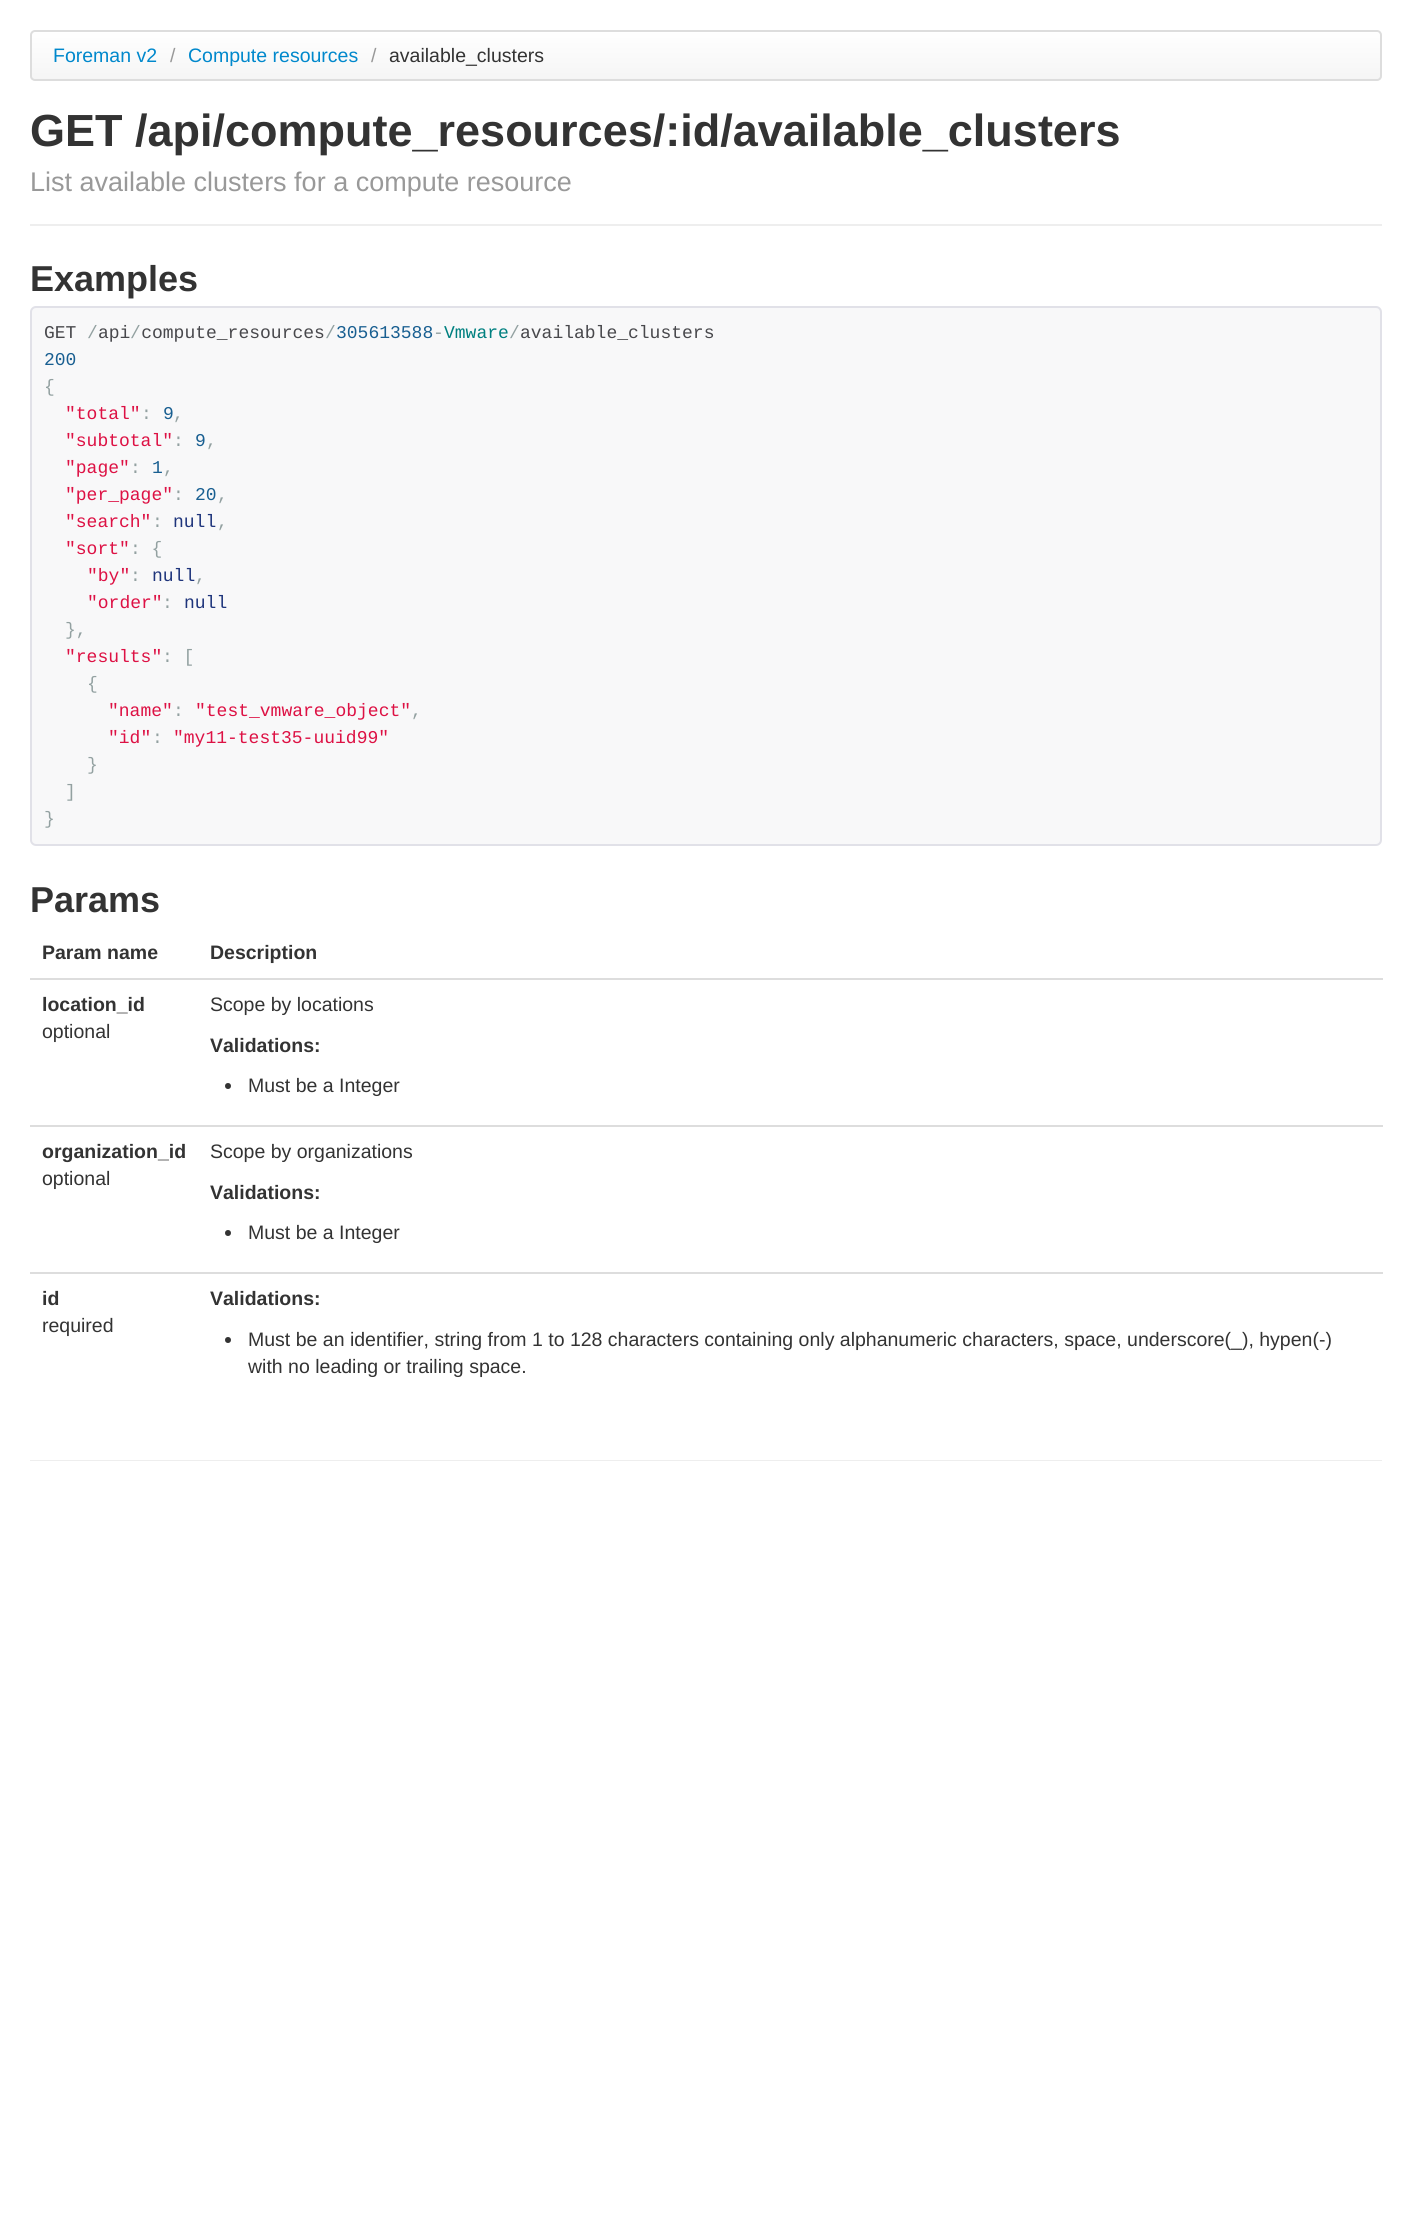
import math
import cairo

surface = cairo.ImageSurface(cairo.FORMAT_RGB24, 1411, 2220)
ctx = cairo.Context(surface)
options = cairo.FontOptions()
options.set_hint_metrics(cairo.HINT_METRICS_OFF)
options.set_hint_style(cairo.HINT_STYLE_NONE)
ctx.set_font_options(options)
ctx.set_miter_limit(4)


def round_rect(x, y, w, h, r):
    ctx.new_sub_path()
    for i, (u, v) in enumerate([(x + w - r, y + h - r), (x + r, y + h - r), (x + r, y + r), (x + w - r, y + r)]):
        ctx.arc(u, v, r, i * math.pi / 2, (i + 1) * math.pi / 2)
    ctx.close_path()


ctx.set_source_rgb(1, 1, 1)
ctx.paint()
ctx.save()
round_rect(30, 30, 1352, 51, 5)
ctx.clip()
gradient = cairo.LinearGradient(706, 31, 706, 80)
gradient.add_color_stop_rgba(0, 1, 1, 1, 1)
gradient.add_color_stop_rgba(1, 0.961, 0.961, 0.961, 1)
ctx.set_source(gradient)
ctx.rectangle(30, 32, 1352, 48)
ctx.fill()
ctx.restore()
round_rect(31, 31, 1350, 49, 4)
ctx.set_source_rgb(0.867, 0.867, 0.867)
ctx.stroke()
ctx.select_font_face("Liberation Sans")
ctx.set_font_size(19.5)
ctx.set_source_rgb(0, 0.533, 0.8)
ctx.move_to(53, 62)
ctx.show_text("Foreman v2")
ctx.set_source_rgb(0.6, 0.6, 0.6)
ctx.move_to(170, 62)
ctx.show_text("/")
ctx.set_source_rgb(0, 0.533, 0.8)
ctx.move_to(188, 62)
ctx.show_text("Compute resources")
ctx.set_source_rgb(0.6, 0.6, 0.6)
ctx.move_to(371, 62)
ctx.show_text("/")
ctx.set_source_rgb(0.2, 0.2, 0.2)
ctx.move_to(389, 62)
ctx.show_text("available_clusters")
ctx.set_source_rgb(0.933, 0.933, 0.933)
ctx.rectangle(30, 224, 1352, 2)
ctx.fill()
ctx.select_font_face("Liberation Sans", cairo.FONT_SLANT_NORMAL, cairo.FONT_WEIGHT_BOLD)
ctx.set_font_size(45)
ctx.set_source_rgb(0.2, 0.2, 0.2)
ctx.move_to(30, 146)
ctx.show_text("GET /api/compute_resources/:id/available_clusters")
ctx.select_font_face("Liberation Sans")
ctx.set_font_size(27)
ctx.set_source_rgb(0.6, 0.6, 0.6)
ctx.move_to(30, 191)
ctx.show_text("List available clusters for a compute resource")
ctx.select_font_face("Liberation Sans", cairo.FONT_SLANT_NORMAL, cairo.FONT_WEIGHT_BOLD)
ctx.set_font_size(36)
ctx.set_source_rgb(0.2, 0.2, 0.2)
ctx.move_to(30, 291)
ctx.show_text("Examples")
ctx.set_source_rgb(0.969, 0.969, 0.976)
round_rect(31, 307, 1350, 538, 5)
ctx.fill_preserve()
ctx.set_source_rgb(0.882, 0.882, 0.91)
ctx.stroke()
ctx.select_font_face("Liberation Mono")
ctx.set_font_size(18)
ctx.set_source_rgb(0.576, 0.631, 0.631)
ctx.move_to(87, 338)
ctx.show_text("/")
ctx.set_source_rgb(0.282, 0.282, 0.298)
ctx.move_to(98, 338)
ctx.show_text("api compute_resources")
ctx.move_to(44, 338)
ctx.show_text("GET")
ctx.set_source_rgb(0.576, 0.631, 0.631)
ctx.move_to(130, 338)
ctx.show_text("/")
ctx.move_to(325, 338)
ctx.show_text("/")
ctx.set_source_rgb(0.098, 0.373, 0.569)
ctx.move_to(336, 338)
ctx.show_text("305613588")
ctx.set_source_rgb(0.576, 0.631, 0.631)
ctx.move_to(433, 338)
ctx.show_text("-")
ctx.set_source_rgb(0, 0.502, 0.502)
ctx.move_to(444, 338)
ctx.show_text("Vmware")
ctx.set_source_rgb(0.576, 0.631, 0.631)
ctx.move_to(509, 338)
ctx.show_text("/")
ctx.set_source_rgb(0.282, 0.282, 0.298)
ctx.move_to(520, 338)
ctx.show_text("available_clusters")
ctx.set_source_rgb(0.098, 0.373, 0.569)
ctx.move_to(44, 365)
ctx.show_text("200")
ctx.set_source_rgb(0.576, 0.631, 0.631)
ctx.move_to(44, 392)
ctx.show_text("{")
ctx.set_source_rgb(0.867, 0.067, 0.267)
ctx.move_to(65, 419)
ctx.show_text("\"total\"")
ctx.set_source_rgb(0.576, 0.631, 0.631)
ctx.move_to(141, 419)
ctx.show_text(":")
ctx.set_source_rgb(0.098, 0.373, 0.569)
ctx.move_to(163, 419)
ctx.show_text("9")
ctx.set_source_rgb(0.576, 0.631, 0.631)
ctx.move_to(173, 419)
ctx.show_text(",")
ctx.set_source_rgb(0.867, 0.067, 0.267)
ctx.move_to(65, 446)
ctx.show_text("\"subtotal\"")
ctx.set_source_rgb(0.576, 0.631, 0.631)
ctx.move_to(173, 446)
ctx.show_text(":")
ctx.set_source_rgb(0.098, 0.373, 0.569)
ctx.move_to(195, 446)
ctx.show_text("9")
ctx.set_source_rgb(0.576, 0.631, 0.631)
ctx.move_to(206, 446)
ctx.show_text(",")
ctx.set_source_rgb(0.867, 0.067, 0.267)
ctx.move_to(65, 473)
ctx.show_text("\"page\"")
ctx.set_source_rgb(0.576, 0.631, 0.631)
ctx.move_to(130, 473)
ctx.show_text(":")
ctx.set_source_rgb(0.098, 0.373, 0.569)
ctx.move_to(152, 473)
ctx.show_text("1")
ctx.set_source_rgb(0.576, 0.631, 0.631)
ctx.move_to(163, 473)
ctx.show_text(",")
ctx.set_source_rgb(0.867, 0.067, 0.267)
ctx.move_to(65, 500)
ctx.show_text("\"per_page\"")
ctx.set_source_rgb(0.576, 0.631, 0.631)
ctx.move_to(173, 500)
ctx.show_text(":")
ctx.set_source_rgb(0.098, 0.373, 0.569)
ctx.move_to(195, 500)
ctx.show_text("20")
ctx.set_source_rgb(0.576, 0.631, 0.631)
ctx.move_to(217, 500)
ctx.show_text(",")
ctx.set_source_rgb(0.867, 0.067, 0.267)
ctx.move_to(65, 527)
ctx.show_text("\"search\"")
ctx.set_source_rgb(0.576, 0.631, 0.631)
ctx.move_to(152, 527)
ctx.show_text(":")
ctx.set_source_rgb(0.118, 0.204, 0.482)
ctx.move_to(173, 527)
ctx.show_text("null")
ctx.set_source_rgb(0.576, 0.631, 0.631)
ctx.move_to(217, 527)
ctx.show_text(",")
ctx.set_source_rgb(0.867, 0.067, 0.267)
ctx.move_to(65, 554)
ctx.show_text("\"sort\"")
ctx.set_source_rgb(0.576, 0.631, 0.631)
ctx.move_to(130, 554)
ctx.show_text(": {")
ctx.set_source_rgb(0.867, 0.067, 0.267)
ctx.move_to(87, 581)
ctx.show_text("\"by\"")
ctx.set_source_rgb(0.576, 0.631, 0.631)
ctx.move_to(130, 581)
ctx.show_text(":")
ctx.set_source_rgb(0.118, 0.204, 0.482)
ctx.move_to(152, 581)
ctx.show_text("null")
ctx.set_source_rgb(0.576, 0.631, 0.631)
ctx.move_to(195, 581)
ctx.show_text(",")
ctx.set_source_rgb(0.867, 0.067, 0.267)
ctx.move_to(87, 608)
ctx.show_text("\"order\"")
ctx.set_source_rgb(0.576, 0.631, 0.631)
ctx.move_to(162, 608)
ctx.show_text(":")
ctx.set_source_rgb(0.118, 0.204, 0.482)
ctx.move_to(184, 608)
ctx.show_text("null")
ctx.set_source_rgb(0.576, 0.631, 0.631)
ctx.move_to(65, 635)
ctx.show_text("},")
ctx.set_source_rgb(0.867, 0.067, 0.267)
ctx.move_to(65, 662)
ctx.show_text("\"results\"")
ctx.set_source_rgb(0.576, 0.631, 0.631)
ctx.move_to(162, 662)
ctx.show_text(": [")
ctx.move_to(87, 689)
ctx.show_text("{")
ctx.set_source_rgb(0.867, 0.067, 0.267)
ctx.move_to(108, 716)
ctx.show_text("\"name\"")
ctx.set_source_rgb(0.576, 0.631, 0.631)
ctx.move_to(173, 716)
ctx.show_text(":")
ctx.set_source_rgb(0.867, 0.067, 0.267)
ctx.move_to(195, 716)
ctx.show_text("\"test_vmware_object\"")
ctx.set_source_rgb(0.576, 0.631, 0.631)
ctx.move_to(411, 716)
ctx.show_text(",")
ctx.set_source_rgb(0.867, 0.067, 0.267)
ctx.move_to(108, 743)
ctx.show_text("\"id\"")
ctx.set_source_rgb(0.576, 0.631, 0.631)
ctx.move_to(152, 743)
ctx.show_text(":")
ctx.set_source_rgb(0.867, 0.067, 0.267)
ctx.move_to(173, 743)
ctx.show_text("\"my11-test35-uuid99\"")
ctx.set_source_rgb(0.576, 0.631, 0.631)
ctx.move_to(87, 770)
ctx.show_text("}")
ctx.move_to(65, 797)
ctx.show_text("]")
ctx.move_to(44, 824)
ctx.show_text("}")
ctx.select_font_face("Liberation Sans", cairo.FONT_SLANT_NORMAL, cairo.FONT_WEIGHT_BOLD)
ctx.set_font_size(36)
ctx.set_source_rgb(0.2, 0.2, 0.2)
ctx.move_to(30, 912)
ctx.show_text("Params")
ctx.set_font_size(19.5)
ctx.move_to(42, 959)
ctx.show_text("Param name")
ctx.move_to(210, 959)
ctx.show_text("Description")
ctx.move_to(42, 1011)
ctx.show_text("location_id")
ctx.select_font_face("Liberation Sans")
ctx.move_to(42, 1038)
ctx.show_text("optional")
ctx.set_source_rgb(0.867, 0.867, 0.867)
ctx.rectangle(30, 978, 1353, 2)
ctx.fill()
ctx.set_source_rgb(0.2, 0.2, 0.2)
ctx.move_to(210, 1011)
ctx.show_text("Scope by locations")
ctx.select_font_face("Liberation Sans", cairo.FONT_SLANT_NORMAL, cairo.FONT_WEIGHT_BOLD)
ctx.move_to(210, 1052)
ctx.show_text("Validations:")
ctx.new_path()
ctx.arc(228, 1086, 3, 0, 2 * math.pi)
ctx.fill()
ctx.select_font_face("Liberation Sans")
ctx.move_to(248, 1092)
ctx.show_text("Must be a Integer")
ctx.select_font_face("Liberation Sans", cairo.FONT_SLANT_NORMAL, cairo.FONT_WEIGHT_BOLD)
ctx.move_to(42, 1158)
ctx.show_text("organization_id")
ctx.select_font_face("Liberation Sans")
ctx.move_to(42, 1185)
ctx.show_text("optional")
ctx.set_source_rgb(0.867, 0.867, 0.867)
ctx.rectangle(30, 1125, 1353, 2)
ctx.fill()
ctx.set_source_rgb(0.2, 0.2, 0.2)
ctx.move_to(210, 1158)
ctx.show_text("Scope by organizations")
ctx.select_font_face("Liberation Sans", cairo.FONT_SLANT_NORMAL, cairo.FONT_WEIGHT_BOLD)
ctx.move_to(210, 1199)
ctx.show_text("Validations:")
ctx.new_path()
ctx.arc(228, 1233, 3, 0, 2 * math.pi)
ctx.fill()
ctx.select_font_face("Liberation Sans")
ctx.move_to(248, 1239)
ctx.show_text("Must be a Integer")
ctx.select_font_face("Liberation Sans", cairo.FONT_SLANT_NORMAL, cairo.FONT_WEIGHT_BOLD)
ctx.move_to(42, 1305)
ctx.show_text("id")
ctx.select_font_face("Liberation Sans")
ctx.move_to(42, 1332)
ctx.show_text("required")
ctx.set_source_rgb(0.867, 0.867, 0.867)
ctx.rectangle(30, 1272, 1353, 2)
ctx.fill()
ctx.select_font_face("Liberation Sans", cairo.FONT_SLANT_NORMAL, cairo.FONT_WEIGHT_BOLD)
ctx.set_source_rgb(0.2, 0.2, 0.2)
ctx.move_to(210, 1305)
ctx.show_text("Validations:")
ctx.new_path()
ctx.arc(228, 1340, 3, 0, 2 * math.pi)
ctx.fill()
ctx.select_font_face("Liberation Sans")
ctx.move_to(248, 1346)
ctx.show_text("Must be an identifier, string from 1 to 128 characters containing only alphanumeric characters, space, underscore(_), hypen(-)")
ctx.move_to(248, 1373)
ctx.show_text("with no leading or trailing space.")
ctx.set_source_rgb(0.933, 0.933, 0.933)
ctx.rectangle(30, 1460, 1352, 1)
ctx.fill()
surface.write_to_png("page.png")
